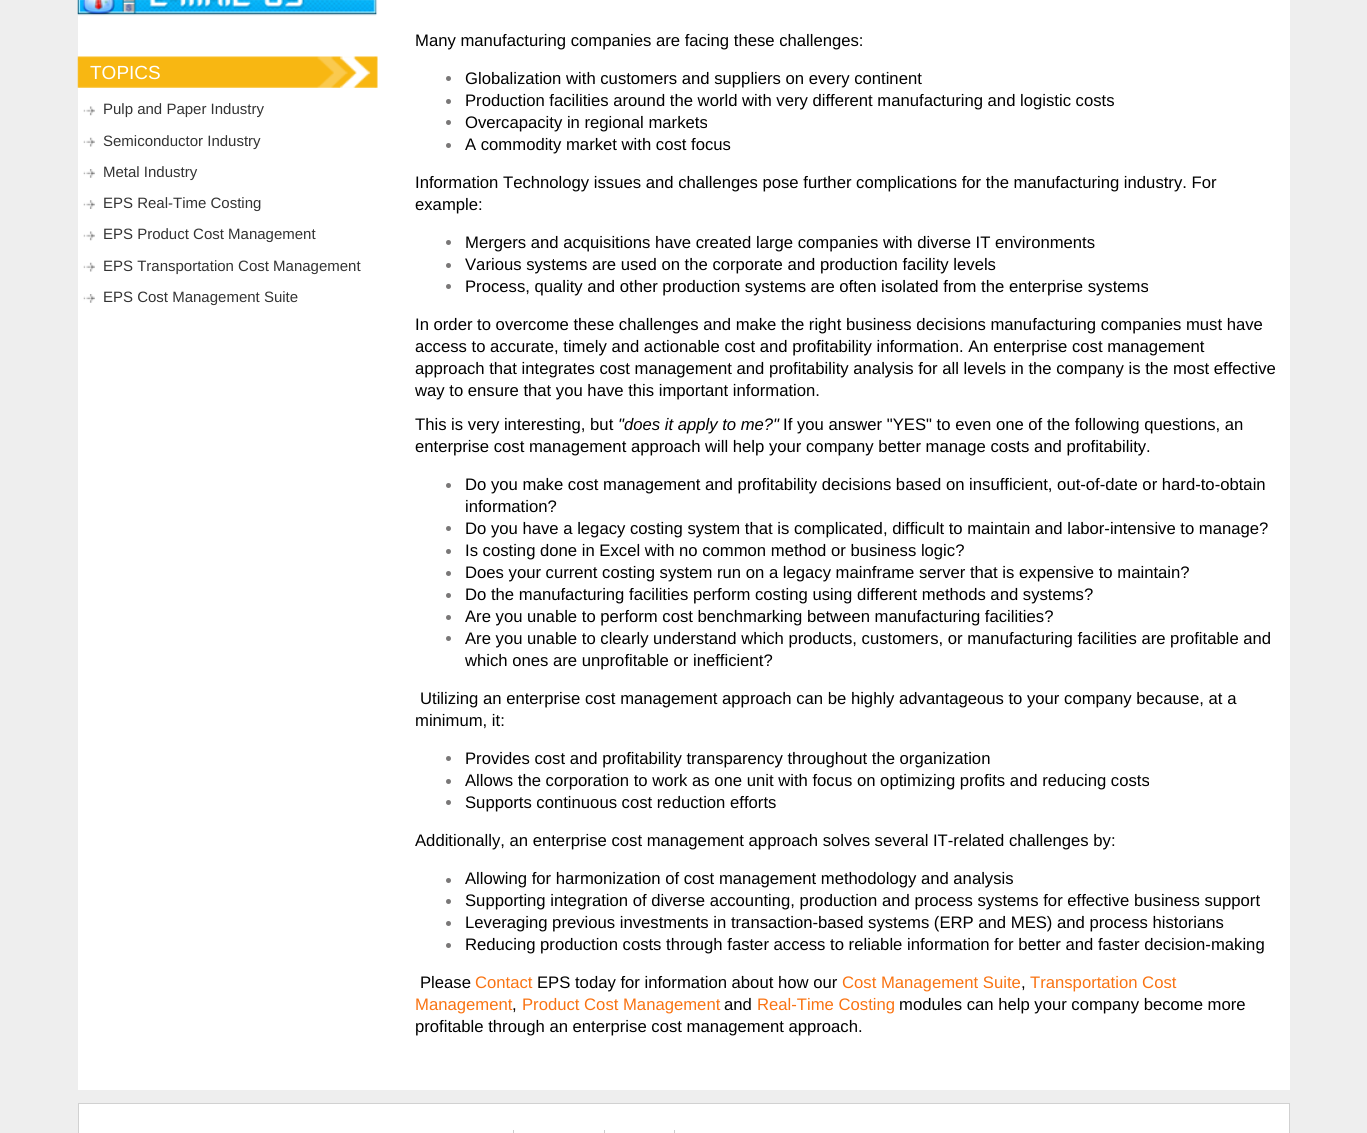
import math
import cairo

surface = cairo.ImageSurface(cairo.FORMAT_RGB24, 1367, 1133)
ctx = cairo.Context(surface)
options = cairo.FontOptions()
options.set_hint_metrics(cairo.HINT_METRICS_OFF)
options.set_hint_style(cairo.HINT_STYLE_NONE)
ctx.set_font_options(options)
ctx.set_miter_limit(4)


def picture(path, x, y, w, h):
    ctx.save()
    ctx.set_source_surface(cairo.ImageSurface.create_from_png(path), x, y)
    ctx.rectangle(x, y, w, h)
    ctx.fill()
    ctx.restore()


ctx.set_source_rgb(0.933, 0.933, 0.933)
ctx.paint()
ctx.set_source_rgb(1, 1, 1)
ctx.rectangle(78, 0, 1212, 1090)
ctx.fill()
picture("img1.png", 77, 0, 301, 16)
picture("img2.png", 77, 56, 301, 32)
ctx.select_font_face("Liberation Sans")
ctx.set_font_size(19)
ctx.move_to(90, 79)
ctx.show_text("TOPICS")
picture("img3.png", 83, 106, 12, 10)
ctx.set_font_size(15)
ctx.set_source_rgb(0.2, 0.2, 0.2)
ctx.move_to(103, 114)
ctx.show_text("Pulp and Paper Industry")
picture("img4.png", 83, 137, 12, 10)
ctx.move_to(103, 146)
ctx.show_text("Semiconductor Industry")
picture("img5.png", 83, 169, 12, 9)
ctx.move_to(103, 177)
ctx.show_text("Metal Industry")
picture("img6.png", 83, 200, 12, 9)
ctx.move_to(103, 208)
ctx.show_text("EPS Real-Time Costing")
picture("img3.png", 83, 231, 12, 10)
ctx.move_to(103, 239)
ctx.show_text("EPS Product Cost Management")
picture("img4.png", 83, 262, 12, 10)
ctx.move_to(103, 271)
ctx.show_text("EPS Transportation Cost Management")
picture("img5.png", 83, 294, 12, 9)
ctx.move_to(103, 302)
ctx.show_text("EPS Cost Management Suite")
ctx.set_font_size(16.67)
ctx.set_source_rgb(0, 0, 0)
ctx.move_to(415, 46)
ctx.show_text("Many manufacturing companies are facing these challenges:")
ctx.set_source_rgb(0.475, 0.467, 0.467)
ctx.new_path()
ctx.arc(448.5, 78.5, 2.5, 0, 2 * math.pi)
ctx.fill()
ctx.set_source_rgb(0, 0, 0)
ctx.move_to(465, 84)
ctx.show_text("Globalization with customers and suppliers on every continent")
ctx.set_source_rgb(0.475, 0.467, 0.467)
ctx.new_path()
ctx.arc(448.5, 101.5, 2.5, 0, 2 * math.pi)
ctx.fill()
ctx.set_source_rgb(0, 0, 0)
ctx.move_to(465, 106)
ctx.show_text("Production facilities around the world with very different manufacturing and logistic costs")
ctx.set_source_rgb(0.475, 0.467, 0.467)
ctx.new_path()
ctx.arc(448.5, 122.5, 2.5, 0, 2 * math.pi)
ctx.fill()
ctx.set_source_rgb(0, 0, 0)
ctx.move_to(465, 128)
ctx.show_text("Overcapacity in regional markets")
ctx.set_source_rgb(0.475, 0.467, 0.467)
ctx.new_path()
ctx.arc(448.5, 145.5, 2.5, 0, 2 * math.pi)
ctx.fill()
ctx.set_source_rgb(0, 0, 0)
ctx.move_to(465, 150)
ctx.show_text("A commodity market with cost focus")
ctx.move_to(415, 188)
ctx.show_text("Information Technology issues and challenges pose further complications for the manufacturing industry. For")
ctx.move_to(415, 210)
ctx.show_text("example:")
ctx.set_source_rgb(0.475, 0.467, 0.467)
ctx.new_path()
ctx.arc(448.5, 242.5, 2.5, 0, 2 * math.pi)
ctx.fill()
ctx.set_source_rgb(0, 0, 0)
ctx.move_to(465, 248)
ctx.show_text("Mergers and acquisitions have created large companies with diverse IT environments")
ctx.set_source_rgb(0.475, 0.467, 0.467)
ctx.new_path()
ctx.arc(448.5, 265.5, 2.5, 0, 2 * math.pi)
ctx.fill()
ctx.set_source_rgb(0, 0, 0)
ctx.move_to(465, 270)
ctx.show_text("Various systems are used on the corporate and production facility levels")
ctx.set_source_rgb(0.475, 0.467, 0.467)
ctx.new_path()
ctx.arc(448.5, 286.5, 2.5, 0, 2 * math.pi)
ctx.fill()
ctx.set_source_rgb(0, 0, 0)
ctx.move_to(465, 292)
ctx.show_text("Process, quality and other production systems are often isolated from the enterprise systems")
ctx.move_to(415, 330)
ctx.show_text("In order to overcome these challenges and make the right business decisions manufacturing companies must have")
ctx.move_to(415, 352)
ctx.show_text("access to accurate, timely and actionable cost and profitability information. An enterprise cost management")
ctx.move_to(415, 374)
ctx.show_text("approach that integrates cost management and profitability analysis for all levels in the company is the most effective")
ctx.move_to(415, 396)
ctx.show_text("way to ensure that you have this important information.")
ctx.move_to(415, 430)
ctx.show_text("This is very interesting, but")
ctx.select_font_face("Liberation Sans", cairo.FONT_SLANT_ITALIC)
ctx.move_to(618, 430)
ctx.show_text("\"does it apply to me?\"")
ctx.select_font_face("Liberation Sans")
ctx.move_to(783, 430)
ctx.show_text("If you answer \"YES\" to even one of the following questions, an")
ctx.move_to(415, 452)
ctx.show_text("enterprise cost management approach will help your company better manage costs and profitability.")
ctx.set_source_rgb(0.475, 0.467, 0.467)
ctx.new_path()
ctx.arc(448.5, 485.5, 2.5, 0, 2 * math.pi)
ctx.fill()
ctx.set_source_rgb(0, 0, 0)
ctx.move_to(465, 490)
ctx.show_text("Do you make cost management and profitability decisions based on insufficient, out-of-date or hard-to-obtain")
ctx.move_to(465, 512)
ctx.show_text("information?")
ctx.set_source_rgb(0.475, 0.467, 0.467)
ctx.new_path()
ctx.arc(448.5, 528.5, 2.5, 0, 2 * math.pi)
ctx.fill()
ctx.set_source_rgb(0, 0, 0)
ctx.move_to(465, 534)
ctx.show_text("Do you have a legacy costing system that is complicated, difficult to maintain and labor-intensive to manage?")
ctx.set_source_rgb(0.475, 0.467, 0.467)
ctx.new_path()
ctx.arc(448.5, 551.5, 2.5, 0, 2 * math.pi)
ctx.fill()
ctx.set_source_rgb(0, 0, 0)
ctx.move_to(465, 556)
ctx.show_text("Is costing done in Excel with no common method or business logic?")
ctx.set_source_rgb(0.475, 0.467, 0.467)
ctx.new_path()
ctx.arc(448.5, 573.5, 2.5, 0, 2 * math.pi)
ctx.fill()
ctx.set_source_rgb(0, 0, 0)
ctx.move_to(465, 578)
ctx.show_text("Does your current costing system run on a legacy mainframe server that is expensive to maintain?")
ctx.set_source_rgb(0.475, 0.467, 0.467)
ctx.new_path()
ctx.arc(448.5, 595.5, 2.5, 0, 2 * math.pi)
ctx.fill()
ctx.set_source_rgb(0, 0, 0)
ctx.move_to(465, 600)
ctx.show_text("Do the manufacturing facilities perform costing using different methods and systems?")
ctx.set_source_rgb(0.475, 0.467, 0.467)
ctx.new_path()
ctx.arc(448.5, 617.5, 2.5, 0, 2 * math.pi)
ctx.fill()
ctx.set_source_rgb(0, 0, 0)
ctx.move_to(465, 622)
ctx.show_text("Are you unable to perform cost benchmarking between manufacturing facilities?")
ctx.set_source_rgb(0.475, 0.467, 0.467)
ctx.new_path()
ctx.arc(448.5, 638.5, 2.5, 0, 2 * math.pi)
ctx.fill()
ctx.set_source_rgb(0, 0, 0)
ctx.move_to(465, 644)
ctx.show_text("Are you unable to clearly understand which products, customers, or manufacturing facilities are profitable and")
ctx.move_to(465, 666)
ctx.show_text("which ones are unprofitable or inefficient?")
ctx.move_to(420, 704)
ctx.show_text("Utilizing an enterprise cost management approach can be highly advantageous to your company because, at a")
ctx.move_to(415, 726)
ctx.show_text("minimum, it:")
ctx.set_source_rgb(0.475, 0.467, 0.467)
ctx.new_path()
ctx.arc(448.5, 758.5, 2.5, 0, 2 * math.pi)
ctx.fill()
ctx.set_source_rgb(0, 0, 0)
ctx.move_to(465, 764)
ctx.show_text("Provides cost and profitability transparency throughout the organization")
ctx.set_source_rgb(0.475, 0.467, 0.467)
ctx.new_path()
ctx.arc(448.5, 781.5, 2.5, 0, 2 * math.pi)
ctx.fill()
ctx.set_source_rgb(0, 0, 0)
ctx.move_to(465, 786)
ctx.show_text("Allows the corporation to work as one unit with focus on optimizing profits and reducing costs")
ctx.set_source_rgb(0.475, 0.467, 0.467)
ctx.new_path()
ctx.arc(448.5, 802.5, 2.5, 0, 2 * math.pi)
ctx.fill()
ctx.set_source_rgb(0, 0, 0)
ctx.move_to(465, 808)
ctx.show_text("Supports continuous cost reduction efforts")
ctx.move_to(415, 846)
ctx.show_text("Additionally, an enterprise cost management approach solves several IT-related challenges by:")
ctx.set_source_rgb(0.475, 0.467, 0.467)
ctx.new_path()
ctx.arc(448.5, 880.5, 2.5, 0, 2 * math.pi)
ctx.fill()
ctx.set_source_rgb(0, 0, 0)
ctx.move_to(465, 884)
ctx.show_text("Allowing for harmonization of cost management methodology and analysis")
ctx.set_source_rgb(0.475, 0.467, 0.467)
ctx.new_path()
ctx.arc(448.5, 901.5, 2.5, 0, 2 * math.pi)
ctx.fill()
ctx.set_source_rgb(0, 0, 0)
ctx.move_to(465, 906)
ctx.show_text("Supporting integration of diverse accounting, production and process systems for effective business support")
ctx.set_source_rgb(0.475, 0.467, 0.467)
ctx.new_path()
ctx.arc(448.5, 923.5, 2.5, 0, 2 * math.pi)
ctx.fill()
ctx.set_source_rgb(0, 0, 0)
ctx.move_to(465, 928)
ctx.show_text("Leveraging previous investments in transaction-based systems (ERP and MES) and process historians")
ctx.set_source_rgb(0.475, 0.467, 0.467)
ctx.new_path()
ctx.arc(448.5, 945.5, 2.5, 0, 2 * math.pi)
ctx.fill()
ctx.set_source_rgb(0, 0, 0)
ctx.move_to(465, 950)
ctx.show_text("Reducing production costs through faster access to reliable information for better and faster decision-making")
ctx.move_to(420, 988)
ctx.show_text("Please")
ctx.set_source_rgb(0.973, 0.451, 0.071)
ctx.move_to(475, 988)
ctx.show_text("Contact")
ctx.set_source_rgb(0, 0, 0)
ctx.move_to(537, 988)
ctx.show_text("EPS today for information about how our")
ctx.set_source_rgb(0.973, 0.451, 0.071)
ctx.move_to(842, 988)
ctx.show_text("Cost Management Suite")
ctx.set_source_rgb(0, 0, 0)
ctx.move_to(1021, 988)
ctx.show_text(",")
ctx.set_source_rgb(0.973, 0.451, 0.071)
ctx.move_to(1030, 988)
ctx.show_text("Transportation Cost")
ctx.move_to(415, 1010)
ctx.show_text("Management")
ctx.set_source_rgb(0, 0, 0)
ctx.move_to(512, 1010)
ctx.show_text(",")
ctx.set_source_rgb(0.973, 0.451, 0.071)
ctx.move_to(522, 1010)
ctx.show_text("Product Cost Management")
ctx.set_source_rgb(0, 0, 0)
ctx.move_to(724, 1010)
ctx.show_text("and")
ctx.set_source_rgb(0.973, 0.451, 0.071)
ctx.move_to(757, 1010)
ctx.show_text("Real-Time Costing")
ctx.set_source_rgb(0, 0, 0)
ctx.move_to(899, 1010)
ctx.show_text("modules can help your company become more")
ctx.move_to(415, 1032)
ctx.show_text("profitable through an enterprise cost management approach.")
ctx.set_source_rgb(1, 1, 1)
ctx.rectangle(78.5, 1103.5, 1211, 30)
ctx.fill_preserve()
ctx.set_source_rgb(0.82, 0.82, 0.82)
ctx.set_line_width(1)
ctx.stroke()
ctx.set_source_rgb(0.8, 0.8, 0.8)
ctx.rectangle(513, 1130, 1, 3)
ctx.fill()
ctx.rectangle(604, 1130, 1, 3)
ctx.fill()
ctx.rectangle(674, 1130, 1, 3)
ctx.fill()
surface.write_to_png("page.png")
